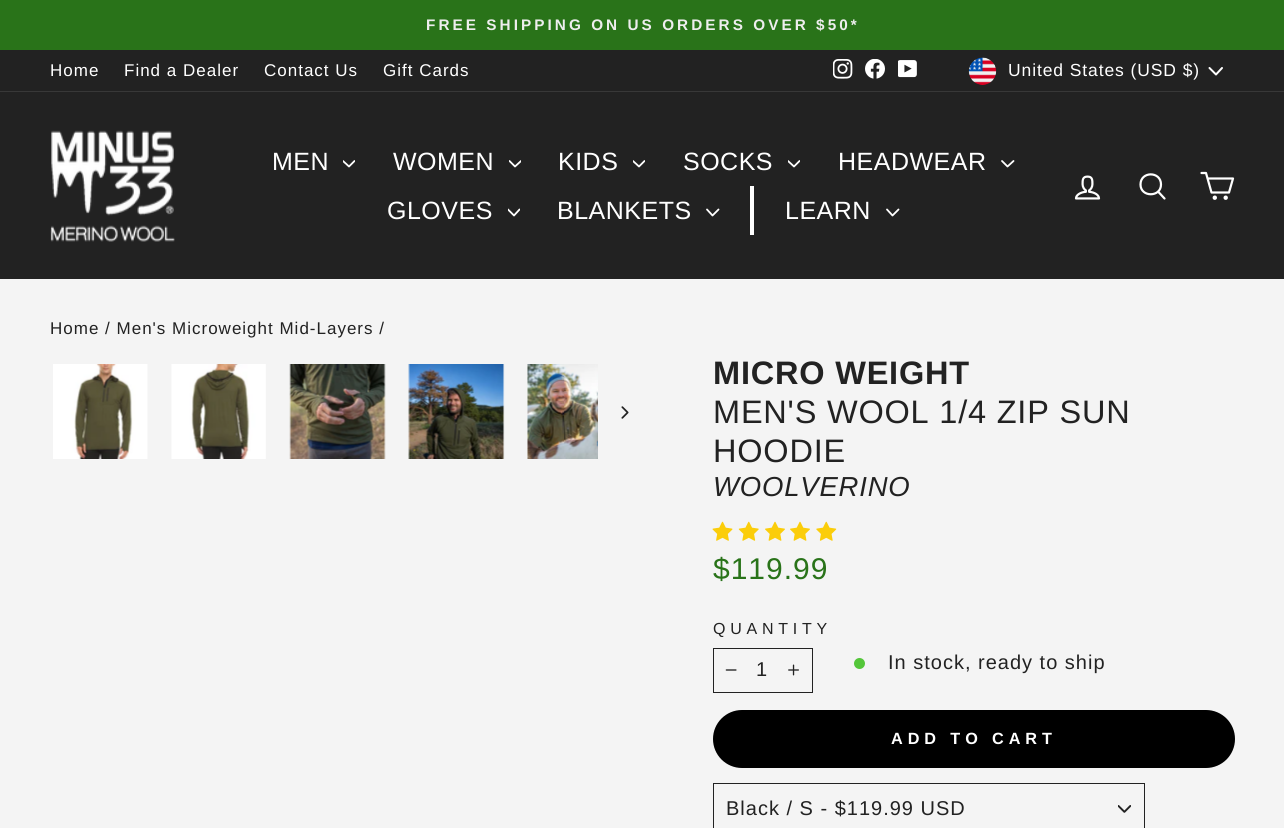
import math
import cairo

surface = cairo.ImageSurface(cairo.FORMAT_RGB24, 1284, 828)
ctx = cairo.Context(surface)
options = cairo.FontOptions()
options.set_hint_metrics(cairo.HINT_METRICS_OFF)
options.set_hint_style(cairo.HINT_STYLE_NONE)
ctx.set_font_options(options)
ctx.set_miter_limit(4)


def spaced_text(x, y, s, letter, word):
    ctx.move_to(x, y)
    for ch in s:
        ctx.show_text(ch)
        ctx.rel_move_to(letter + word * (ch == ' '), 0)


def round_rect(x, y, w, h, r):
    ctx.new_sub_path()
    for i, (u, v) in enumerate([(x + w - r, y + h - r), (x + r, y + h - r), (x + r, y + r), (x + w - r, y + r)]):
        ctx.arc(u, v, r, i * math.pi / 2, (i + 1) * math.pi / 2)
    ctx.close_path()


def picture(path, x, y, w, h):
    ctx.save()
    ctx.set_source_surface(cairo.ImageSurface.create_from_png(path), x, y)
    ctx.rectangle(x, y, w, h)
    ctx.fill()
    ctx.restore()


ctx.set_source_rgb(0.957, 0.957, 0.957)
ctx.paint()
ctx.set_source_rgb(0.161, 0.451, 0.098)
ctx.rectangle(0, 0, 1284, 50)
ctx.fill()
ctx.select_font_face("Liberation Sans", cairo.FONT_SLANT_NORMAL, cairo.FONT_WEIGHT_BOLD)
ctx.set_font_size(15.3)
ctx.set_source_rgb(0.933, 0.933, 0.933)
spaced_text(426, 30, "FREE SHIPPING ON US ORDERS OVER $50*", 3.05, 0)
ctx.set_source_rgb(0.133, 0.133, 0.133)
ctx.rectangle(0, 50, 1284, 41)
ctx.fill()
ctx.select_font_face("Liberation Sans")
ctx.set_font_size(17)
ctx.set_source_rgb(1, 1, 1)
spaced_text(50, 76, "Home", 1, 0)
spaced_text(124, 76, "Find a Dealer", 1, 0)
spaced_text(264, 76, "Contact Us", 1, 0)
spaced_text(383, 76, "Gift Cards", 1, 0)
picture("img1.png", 833, 59, 20, 20)
picture("img2.png", 865, 59, 20, 20)
picture("img3.png", 898, 60, 19, 18)
picture("img4.png", 968, 57, 29, 28)
ctx.set_font_size(17.5)
spaced_text(1008, 76, "United States (USD $)", 0.9, 0)
ctx.new_path()
ctx.move_to(1209.5, 68)
ctx.line_to(1216, 74.5)
ctx.line_to(1222, 68)
ctx.set_line_cap(cairo.LINE_CAP_ROUND)
ctx.set_line_join(cairo.LINE_JOIN_ROUND)
ctx.stroke()
ctx.set_source_rgb(0.133, 0.133, 0.133)
ctx.rectangle(0, 92, 1284, 187)
ctx.fill()
ctx.set_source_rgb(0.22, 0.22, 0.22)
ctx.rectangle(0, 91, 1284, 1)
ctx.fill()
picture("img5.png", 50, 130, 125, 112)
ctx.set_font_size(25)
ctx.set_source_rgb(1, 1, 1)
spaced_text(272, 170, "MEN", 0.5, 0)
ctx.save()
ctx.rectangle(343, 158, 12, 12)
ctx.clip()
ctx.new_path()
ctx.move_to(343, 161)
ctx.line_to(349, 166.5)
ctx.line_to(354.5, 161)
ctx.set_line_width(1.8)
ctx.stroke()
ctx.restore()
spaced_text(393, 170, "WOMEN", 0.5, 0)
ctx.save()
ctx.rectangle(509, 158, 12, 12)
ctx.clip()
ctx.new_path()
ctx.move_to(509.5, 161)
ctx.line_to(515, 166.5)
ctx.line_to(521, 161)
ctx.set_line_width(1.8)
ctx.stroke()
ctx.restore()
spaced_text(558, 170, "KIDS", 0.5, 0)
ctx.save()
ctx.rectangle(633, 158, 12, 12)
ctx.clip()
ctx.new_path()
ctx.move_to(633, 161)
ctx.line_to(639, 166.5)
ctx.line_to(644.5, 161)
ctx.set_line_width(1.8)
ctx.stroke()
ctx.restore()
spaced_text(683, 170, "SOCKS", 0.5, 0)
ctx.save()
ctx.rectangle(788, 158, 12, 12)
ctx.clip()
ctx.new_path()
ctx.move_to(788, 161)
ctx.line_to(794, 166.5)
ctx.line_to(799.5, 161)
ctx.set_line_width(1.8)
ctx.stroke()
ctx.restore()
spaced_text(838, 170, "HEADWEAR", 0.5, 0)
ctx.new_path()
ctx.move_to(1002, 161)
ctx.line_to(1007.5, 166.5)
ctx.line_to(1013.5, 161)
ctx.set_line_width(1.8)
ctx.stroke()
spaced_text(387, 219, "GLOVES", 0.5, 0)
ctx.save()
ctx.rectangle(508, 206, 12, 13)
ctx.clip()
ctx.new_path()
ctx.move_to(508, 209.5)
ctx.line_to(514, 215.5)
ctx.line_to(519.5, 209.5)
ctx.stroke()
ctx.restore()
spaced_text(557, 219, "BLANKETS", 0.5, 0)
ctx.new_path()
ctx.move_to(707, 209.5)
ctx.line_to(712.5, 215.5)
ctx.line_to(718.5, 209.5)
ctx.stroke()
ctx.rectangle(750, 186, 4, 49)
ctx.fill()
spaced_text(785, 219, "LEARN", 0.5, 0)
ctx.new_path()
ctx.move_to(887, 209.5)
ctx.line_to(892.5, 215.5)
ctx.line_to(898.5, 209.5)
ctx.stroke()
picture("img6.png", 1074, 175, 27, 25)
ctx.new_path()
ctx.move_to(1161, 184.5)
ctx.curve_to(1161, 197.5, 1140.5, 197.5, 1140.5, 184.5)
ctx.curve_to(1140.5, 171, 1161, 171, 1161, 184.5)
ctx.close_path()
ctx.move_to(1164.5, 198.5)
ctx.line_to(1158, 191.5)
ctx.set_line_width(2.2)
ctx.stroke()
ctx.new_path()
ctx.move_to(1207.5, 178.5)
ctx.line_to(1233, 178.5)
ctx.line_to(1229, 192.5)
ctx.line_to(1211.5, 192.5)
ctx.line_to(1206, 173)
ctx.line_to(1201.5, 173)
ctx.stroke()
ctx.arc(1214.8, 197.7, 1.1, 0, 2 * math.pi)
ctx.set_line_cap(cairo.LINE_CAP_BUTT)
ctx.set_line_join(cairo.LINE_JOIN_MITER)
ctx.stroke()
ctx.arc(1225.7, 197.7, 1.1, 0, 2 * math.pi)
ctx.stroke()
ctx.set_font_size(17)
ctx.set_source_rgb(0.133, 0.133, 0.133)
spaced_text(50, 334, "Home / Men's Microweight Mid-Layers /", 1, 0)
picture("img7.png", 53, 364, 95, 95)
picture("img8.png", 171, 364, 95, 95)
picture("img9.png", 289, 364, 97, 95)
picture("img10.png", 408, 364, 97, 95)
picture("img11.png", 527, 364, 71, 95)
picture("img12.png", 621, 406, 8, 13)
ctx.select_font_face("Liberation Sans", cairo.FONT_SLANT_NORMAL, cairo.FONT_WEIGHT_BOLD)
ctx.set_font_size(32.5)
spaced_text(713, 384, "MICRO WEIGHT", 0.8, 0)
ctx.select_font_face("Liberation Sans")
spaced_text(713, 423, "MEN'S WOOL 1/4 ZIP SUN", 0.8, 0)
spaced_text(713, 462, "HOODIE", 0.8, 0)
ctx.select_font_face("Liberation Sans", cairo.FONT_SLANT_ITALIC)
ctx.set_font_size(27.5)
spaced_text(713, 496, "WOOLVERINO", 0.8, 0)
picture("img13.png", 712, 521, 21, 20)
picture("img14.png", 738, 521, 21, 20)
picture("img15.png", 765, 521, 20, 20)
picture("img15.png", 790, 521, 20, 20)
picture("img16.png", 816, 521, 21, 20)
ctx.select_font_face("Liberation Sans")
ctx.set_font_size(30)
ctx.set_source_rgb(0.161, 0.451, 0.098)
spaced_text(713, 579, "$119.99", 1, 0)
ctx.set_font_size(16)
ctx.set_source_rgb(0.133, 0.133, 0.133)
spaced_text(713, 634, "QUANTITY", 4.75, 0)
ctx.rectangle(713.5, 648.5, 99, 44)
ctx.set_line_width(1)
ctx.stroke()
picture("img17.png", 725, 669, 12, 2)
ctx.set_font_size(20)
spaced_text(756, 676, "1", 1, 0)
picture("img18.png", 788, 664, 11, 12)
ctx.set_source_rgb(0.329, 0.776, 0.227)
ctx.arc(859.5, 663.5, 5.5, 0, 2 * math.pi)
ctx.fill()
ctx.set_source_rgb(0.133, 0.133, 0.133)
spaced_text(888, 669, "In stock, ready to ship", 1, 0)
ctx.set_source_rgb(0, 0, 0)
round_rect(713, 710, 522, 58, 29)
ctx.fill()
ctx.select_font_face("Liberation Sans", cairo.FONT_SLANT_NORMAL, cairo.FONT_WEIGHT_BOLD)
ctx.set_font_size(16.25)
ctx.set_source_rgb(1, 1, 1)
spaced_text(891, 744, "ADD TO CART", 4.9, 0)
picture("img19.png", 1118, 805, 13, 8)
ctx.rectangle(713.5, 783.5, 431, 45)
ctx.set_source_rgb(0.133, 0.133, 0.133)
ctx.stroke()
ctx.select_font_face("Liberation Sans")
ctx.set_font_size(20)
spaced_text(726, 815, "Black / S - $119.99 USD", 1, 0)
surface.write_to_png("page.png")
